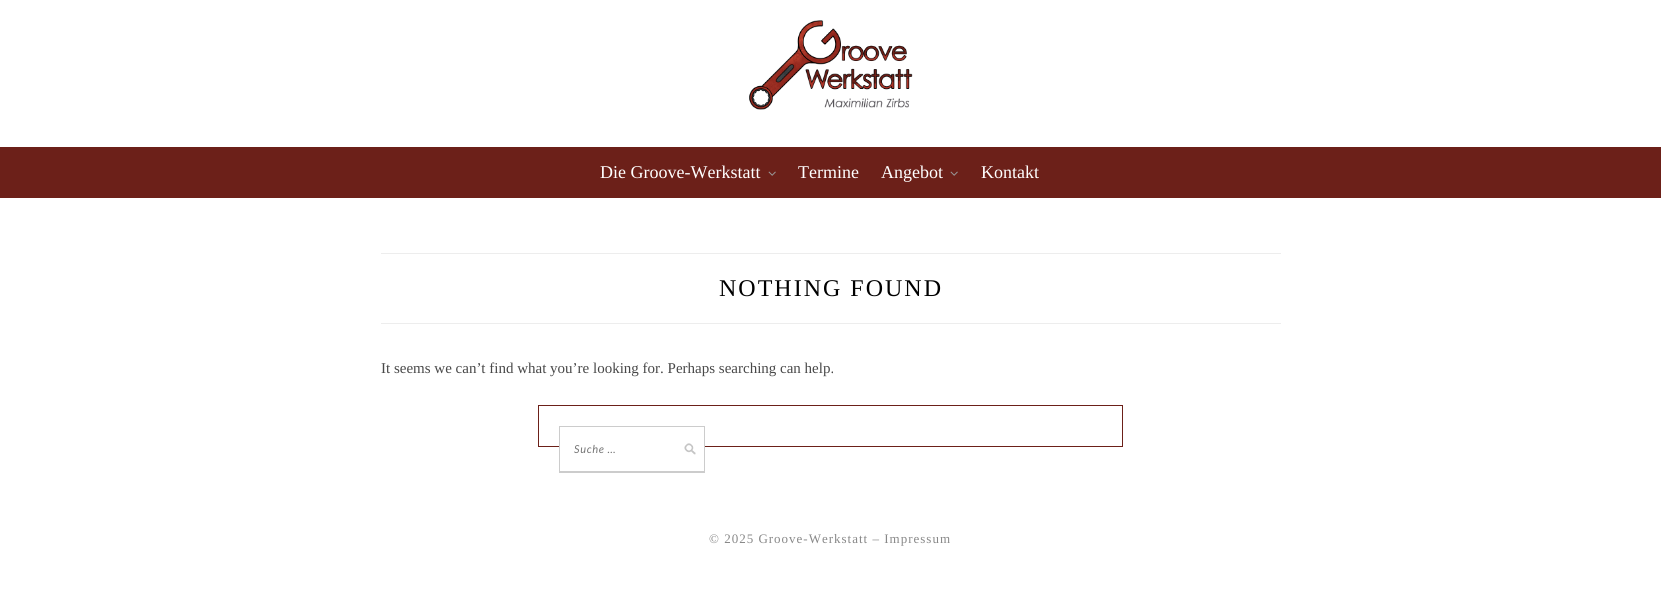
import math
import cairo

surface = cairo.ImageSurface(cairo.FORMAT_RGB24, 1661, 591)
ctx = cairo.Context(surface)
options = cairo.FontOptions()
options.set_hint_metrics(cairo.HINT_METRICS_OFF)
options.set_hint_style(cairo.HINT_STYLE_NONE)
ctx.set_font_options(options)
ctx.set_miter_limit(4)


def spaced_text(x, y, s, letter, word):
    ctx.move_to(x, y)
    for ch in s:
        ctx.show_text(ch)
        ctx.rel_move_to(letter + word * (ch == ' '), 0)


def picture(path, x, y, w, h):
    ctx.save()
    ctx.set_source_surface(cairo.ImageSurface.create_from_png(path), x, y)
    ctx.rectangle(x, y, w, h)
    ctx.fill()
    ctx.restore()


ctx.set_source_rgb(1, 1, 1)
ctx.paint()
picture("img1.png", 749, 20, 164, 90)
ctx.set_source_rgb(0.424, 0.125, 0.098)
ctx.rectangle(0, 147, 1661, 51)
ctx.fill()
ctx.select_font_face("Liberation Serif")
ctx.set_font_size(18)
ctx.set_source_rgb(1, 1, 1)
ctx.move_to(600, 178)
ctx.show_text("Die Groove-Werkstatt")
picture("img2.png", 768, 171, 8, 5)
ctx.move_to(798, 178)
ctx.show_text("Termine")
ctx.move_to(881, 178)
ctx.show_text("Angebot")
picture("img2.png", 950, 171, 8, 5)
ctx.move_to(981, 178)
ctx.show_text("Kontakt")
ctx.set_source_rgb(0.929, 0.929, 0.929)
ctx.rectangle(381, 253, 900, 1)
ctx.fill()
ctx.rectangle(381, 323, 900, 1)
ctx.fill()
ctx.set_font_size(24)
ctx.set_source_rgb(0, 0, 0)
spaced_text(719, 296, "NOTHING FOUND", 2, 0)
ctx.set_font_size(15)
ctx.set_source_rgb(0.282, 0.282, 0.282)
ctx.move_to(381, 373)
ctx.show_text("It seems we can’t find what you’re looking for. Perhaps searching can help.")
ctx.rectangle(538.5, 405.5, 584, 41)
ctx.set_source_rgb(0.424, 0.125, 0.098)
ctx.set_line_width(1)
ctx.stroke()
ctx.set_source_rgb(1, 1, 1)
ctx.rectangle(560, 446, 144, 1)
ctx.fill()
picture("img3.png", 684, 443, 12, 12)
ctx.set_source_rgb(0.8, 0.8, 0.8)
ctx.rectangle(559, 426, 146, 1)
ctx.fill()
ctx.rectangle(704, 426, 1, 47)
ctx.fill()
ctx.rectangle(559, 471, 146, 2)
ctx.fill()
ctx.rectangle(559, 426, 1, 47)
ctx.fill()
ctx.select_font_face("Lato", cairo.FONT_SLANT_ITALIC)
ctx.set_font_size(11)
ctx.set_source_rgb(0.459, 0.459, 0.459)
spaced_text(574, 453, "Suche …", 0.75, 0)
ctx.select_font_face("Liberation Serif")
ctx.set_font_size(13)
ctx.set_source_rgb(0.533, 0.533, 0.533)
spaced_text(709, 543, "© 2025 Groove-Werkstatt – Impressum", 1, 0)
surface.write_to_png("page.png")
